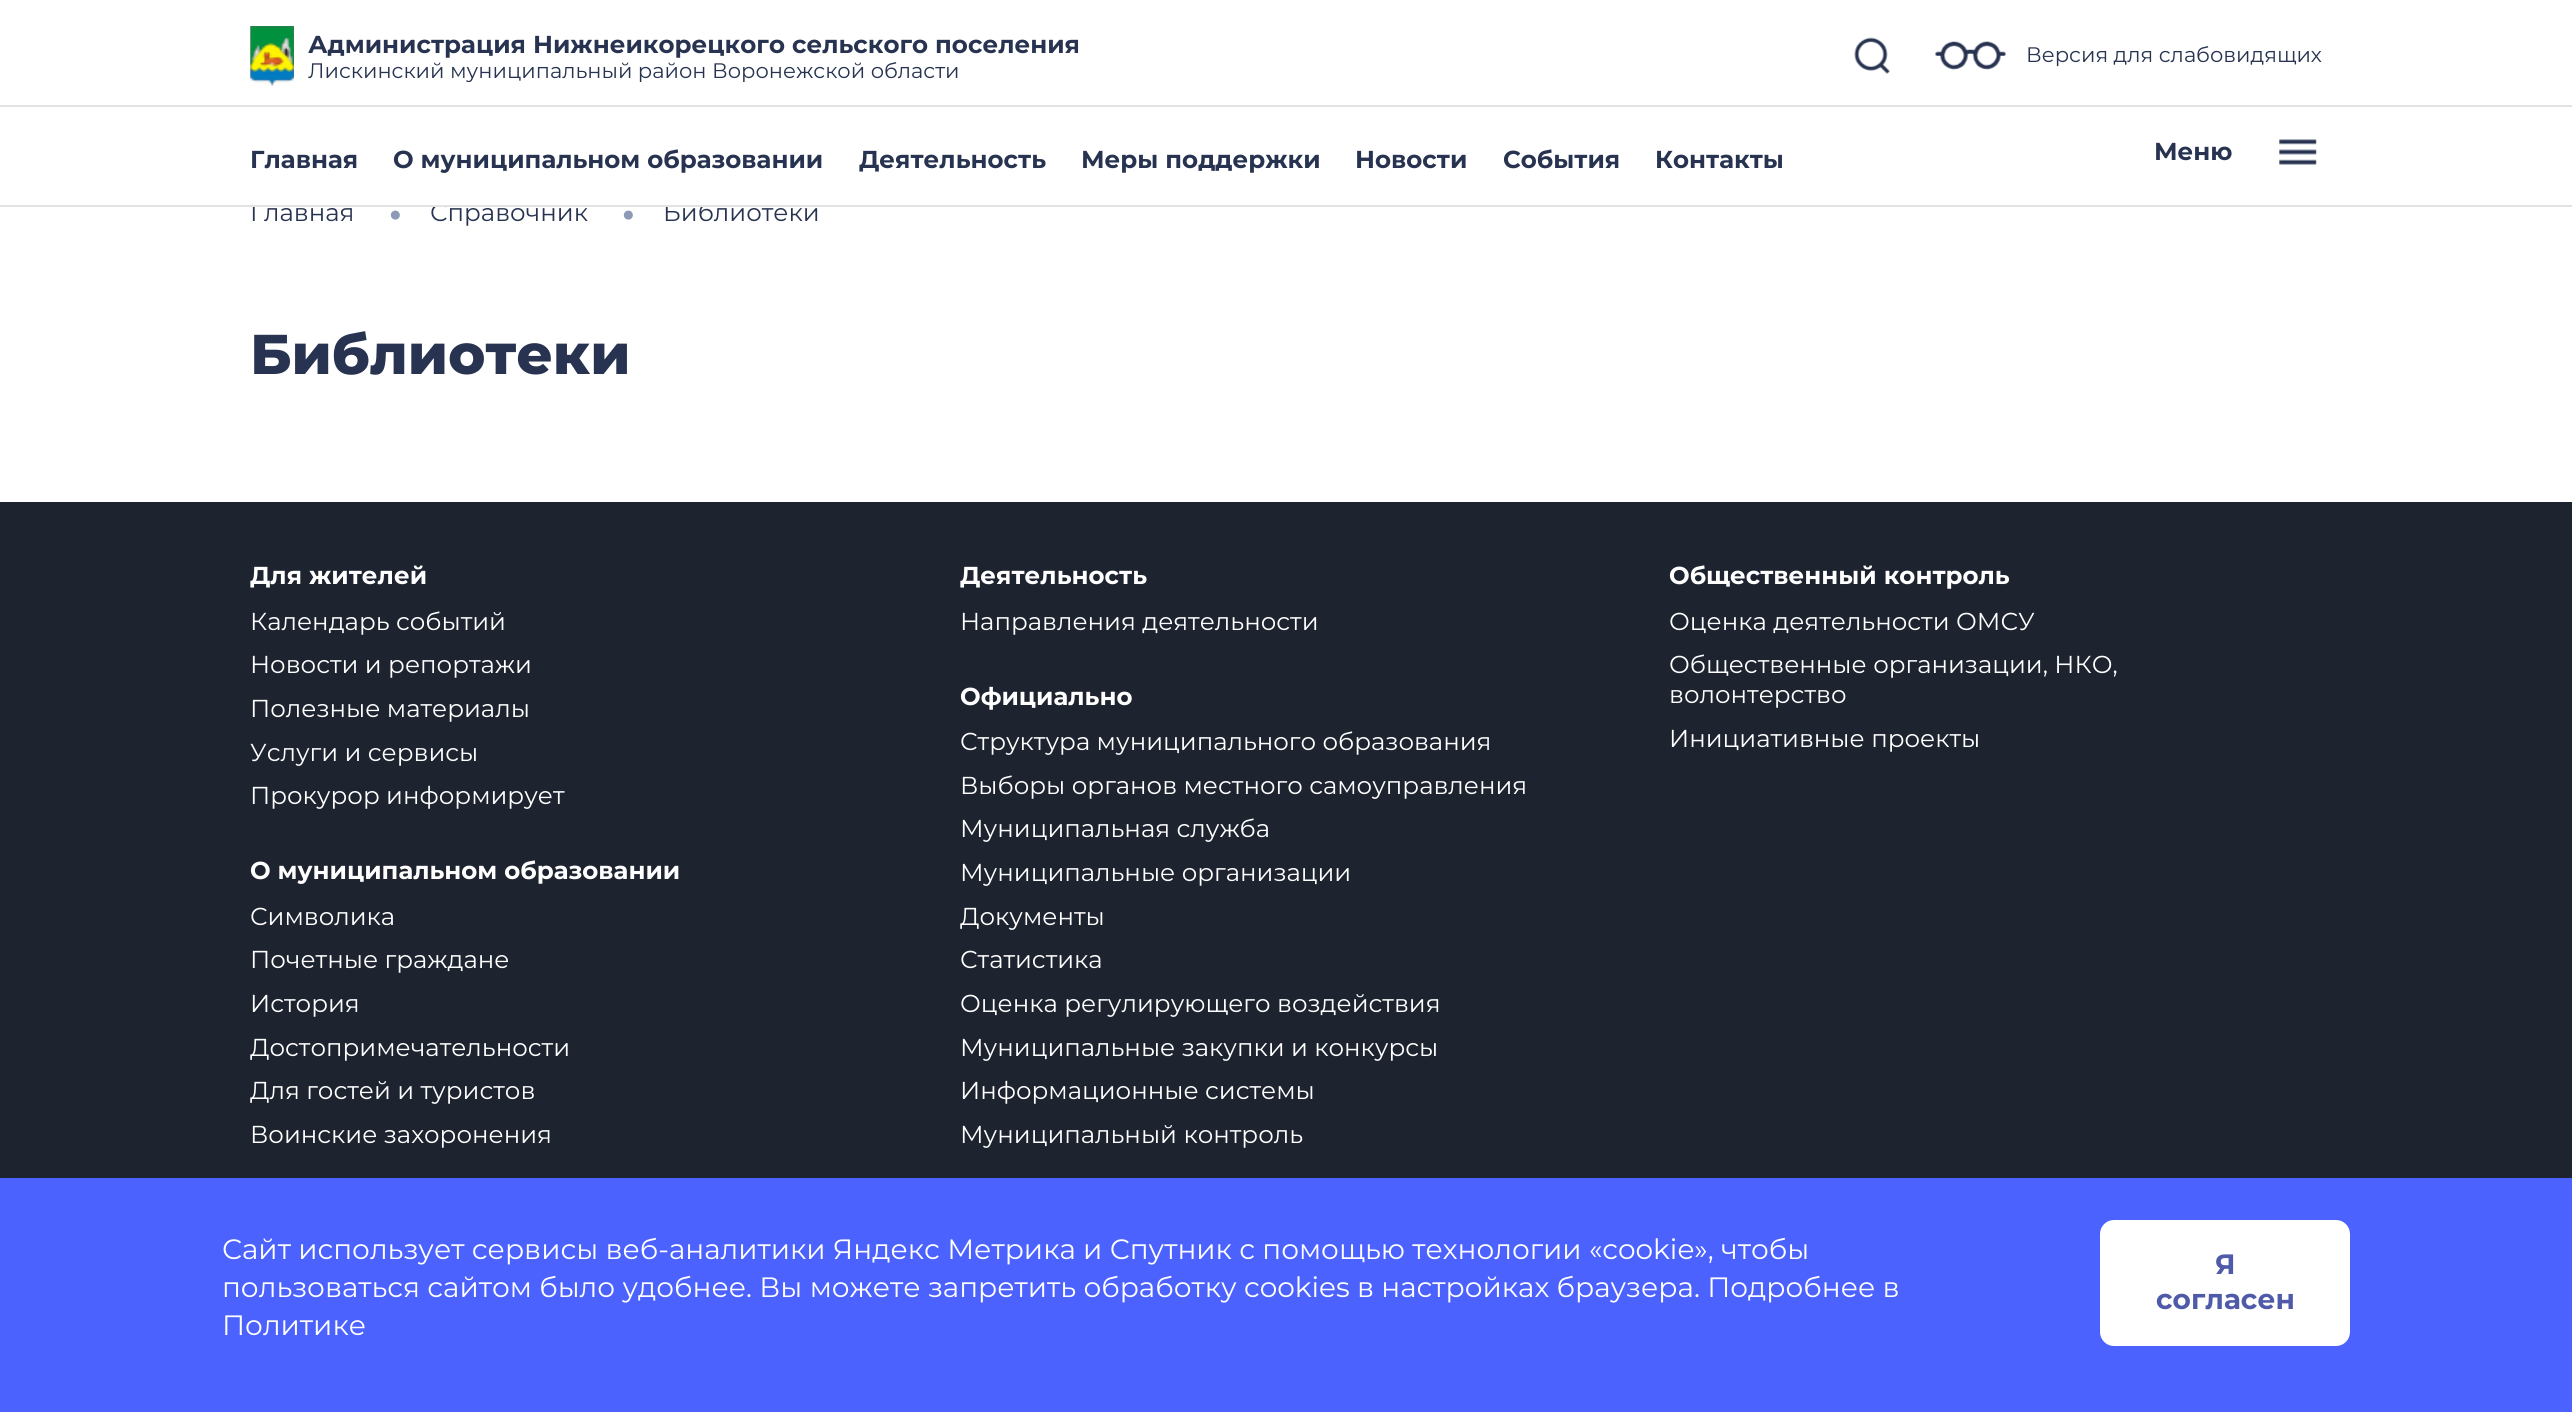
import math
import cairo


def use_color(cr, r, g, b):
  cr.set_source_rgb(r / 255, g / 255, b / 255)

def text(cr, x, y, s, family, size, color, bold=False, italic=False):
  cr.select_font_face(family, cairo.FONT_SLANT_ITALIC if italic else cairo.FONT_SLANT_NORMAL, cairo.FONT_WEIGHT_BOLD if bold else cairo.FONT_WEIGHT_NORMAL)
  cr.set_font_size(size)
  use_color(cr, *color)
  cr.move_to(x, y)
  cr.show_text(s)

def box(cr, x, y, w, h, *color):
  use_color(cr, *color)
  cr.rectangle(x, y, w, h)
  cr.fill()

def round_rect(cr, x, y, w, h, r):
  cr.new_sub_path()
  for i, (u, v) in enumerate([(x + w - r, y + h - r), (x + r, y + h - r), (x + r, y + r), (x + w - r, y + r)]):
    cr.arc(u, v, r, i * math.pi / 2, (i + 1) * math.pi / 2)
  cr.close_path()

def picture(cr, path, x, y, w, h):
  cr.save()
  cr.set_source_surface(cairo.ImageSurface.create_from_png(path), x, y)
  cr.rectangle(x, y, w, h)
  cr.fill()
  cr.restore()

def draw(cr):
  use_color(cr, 255, 255, 255)
  cr.paint()
  box(cr, 0, 105, 2572, 2, 227, 227, 227)
  picture(cr, "img_01.png", 250, 26, 44, 60)
  picture(cr, "img_02.png", 1854, 37, 36, 37)
  picture(cr, "img_03.png", 1935, 41, 71, 29)
  picture(cr, "img_04.png", 2279, 139, 38, 26)
  box(cr, 0, 502, 2572, 676, 29, 35, 47)
  box(cr, 0, 1178, 2572, 234, 75, 98, 255)
  use_color(cr, 255, 255, 255)
  round_rect(cr, 2100, 1220, 250, 126, 14)
  cr.fill()
  text(cr, 308, 53, "Администрация Нижнеикорецкого сельского поселения", "Montserrat", 24.5, (39, 51, 80), bold=True)
  cr.save()
  cr.rectangle(308, 61, 1502, 21)
  cr.clip()
  text(cr, 308, 78, "Лискинский муниципальный район Воронежской области", "Montserrat", 21, (39, 51, 80))
  cr.restore()
  text(cr, 2026, 62, "Версия для слабовидящих", "Montserrat", 21, (39, 51, 80))
  text(cr, 250, 168, "Главная", "Montserrat", 24.5, (39, 51, 80), bold=True)
  text(cr, 393, 168, "О муниципальном образовании", "Montserrat", 24.5, (39, 51, 80), bold=True)
  text(cr, 859, 168, "Деятельность", "Montserrat", 24.5, (39, 51, 80), bold=True)
  text(cr, 1081, 168, "Меры поддержки", "Montserrat", 24.5, (39, 51, 80), bold=True)
  text(cr, 1355, 168, "Новости", "Montserrat", 24.5, (39, 51, 80), bold=True)
  text(cr, 1503, 168, "События", "Montserrat", 24.5, (39, 51, 80), bold=True)
  text(cr, 1655, 168, "Контакты", "Montserrat", 24.5, (39, 51, 80), bold=True)
  text(cr, 2154, 160, "Меню", "Montserrat", 24.5, (39, 51, 80), bold=True)
  text(cr, 250, 221, "Главная", "Montserrat", 24.5, (39, 51, 80))
  text(cr, 389, 221, "●", "Liberation Serif", 21, (140, 154, 184))
  text(cr, 430, 221, "Справочник", "Montserrat", 24.5, (39, 51, 80))
  text(cr, 622, 221, "●", "Liberation Serif", 21, (140, 154, 184))
  text(cr, 663, 221, "Библиотеки", "Montserrat", 24.5, (39, 51, 80))
  box(cr, 0, 205, 2572, 2, 227, 227, 227)
  box(cr, 253, 202, 459, 3, 255, 255, 255)
  text(cr, 250, 374, "Библиотеки", "Montserrat ExtraBold", 56, (39, 51, 80))
  text(cr, 250, 584, "Для жителей", "Montserrat", 24.5, (255, 255, 255), bold=True)
  text(cr, 250, 630, "Календарь событий", "Montserrat", 24.5, (255, 255, 255))
  text(cr, 250, 673, "Новости и репортажи", "Montserrat", 24.5, (255, 255, 255))
  text(cr, 250, 717, "Полезные материалы", "Montserrat", 24.5, (255, 255, 255))
  text(cr, 250, 761, "Услуги и сервисы", "Montserrat", 24.5, (255, 255, 255))
  text(cr, 250, 804, "Прокурор информирует", "Montserrat", 24.5, (255, 255, 255))
  text(cr, 250, 879, "О муниципальном образовании", "Montserrat", 24.5, (255, 255, 255), bold=True)
  text(cr, 250, 925, "Символика", "Montserrat", 24.5, (255, 255, 255))
  text(cr, 250, 968, "Почетные граждане", "Montserrat", 24.5, (255, 255, 255))
  text(cr, 250, 1012, "История", "Montserrat", 24.5, (255, 255, 255))
  text(cr, 250, 1056, "Достопримечательности", "Montserrat", 24.5, (255, 255, 255))
  text(cr, 250, 1099, "Для гостей и туристов", "Montserrat", 24.5, (255, 255, 255))
  text(cr, 250, 1143, "Воинские захоронения", "Montserrat", 24.5, (255, 255, 255))
  text(cr, 960, 584, "Деятельность", "Montserrat", 24.5, (255, 255, 255), bold=True)
  text(cr, 960, 630, "Направления деятельности", "Montserrat", 24.5, (255, 255, 255))
  text(cr, 960, 705, "Официально", "Montserrat", 24.5, (255, 255, 255), bold=True)
  text(cr, 960, 750, "Структура муниципального образования", "Montserrat", 24.5, (255, 255, 255))
  text(cr, 960, 794, "Выборы органов местного самоуправления", "Montserrat", 24.5, (255, 255, 255))
  text(cr, 960, 837, "Муниципальная служба", "Montserrat", 24.5, (255, 255, 255))
  text(cr, 960, 881, "Муниципальные организации", "Montserrat", 24.5, (255, 255, 255))
  text(cr, 960, 925, "Документы", "Montserrat", 24.5, (255, 255, 255))
  text(cr, 960, 968, "Статистика", "Montserrat", 24.5, (255, 255, 255))
  text(cr, 960, 1012, "Оценка регулирующего воздействия", "Montserrat", 24.5, (255, 255, 255))
  text(cr, 960, 1056, "Муниципальные закупки и конкурсы", "Montserrat", 24.5, (255, 255, 255))
  text(cr, 960, 1099, "Информационные системы", "Montserrat", 24.5, (255, 255, 255))
  text(cr, 960, 1143, "Муниципальный контроль", "Montserrat", 24.5, (255, 255, 255))
  text(cr, 1669, 584, "Общественный контроль", "Montserrat", 24.5, (255, 255, 255), bold=True)
  text(cr, 1669, 630, "Оценка деятельности ОМСУ", "Montserrat", 24.5, (255, 255, 255))
  text(cr, 1669, 673, "Общественные организации, НКО,", "Montserrat", 24.5, (255, 255, 255))
  text(cr, 1669, 703, "волонтерство", "Montserrat", 24.5, (255, 255, 255))
  text(cr, 1669, 747, "Инициативные проекты", "Montserrat", 24.5, (255, 255, 255))
  text(cr, 222, 1259, "Сайт использует сервисы веб-аналитики Яндекс Метрика и Спутник с помощью технологии «cookie», чтобы", "Montserrat", 28, (255, 255, 255))
  text(cr, 222, 1297, "пользоваться сайтом было удобнее. Вы можете запретить обработку cookies в настройках браузера. Подробнее в", "Montserrat", 28, (255, 255, 255))
  text(cr, 222, 1335, "Политике", "Montserrat", 28, (255, 255, 255))
  text(cr, 2215, 1274, "Я", "Montserrat", 28, (79, 90, 168), bold=True)
  text(cr, 2156, 1309, "согласен", "Montserrat", 28, (79, 90, 168), bold=True)


surface = cairo.ImageSurface(cairo.FORMAT_RGB24, 2572, 1412)
cr = cairo.Context(surface)
options = cairo.FontOptions()
options.set_hint_metrics(cairo.HINT_METRICS_OFF)
options.set_hint_style(cairo.HINT_STYLE_NONE)
cr.set_font_options(options)
cr.set_miter_limit(4)
draw(cr)
surface.write_to_png("out.png")
